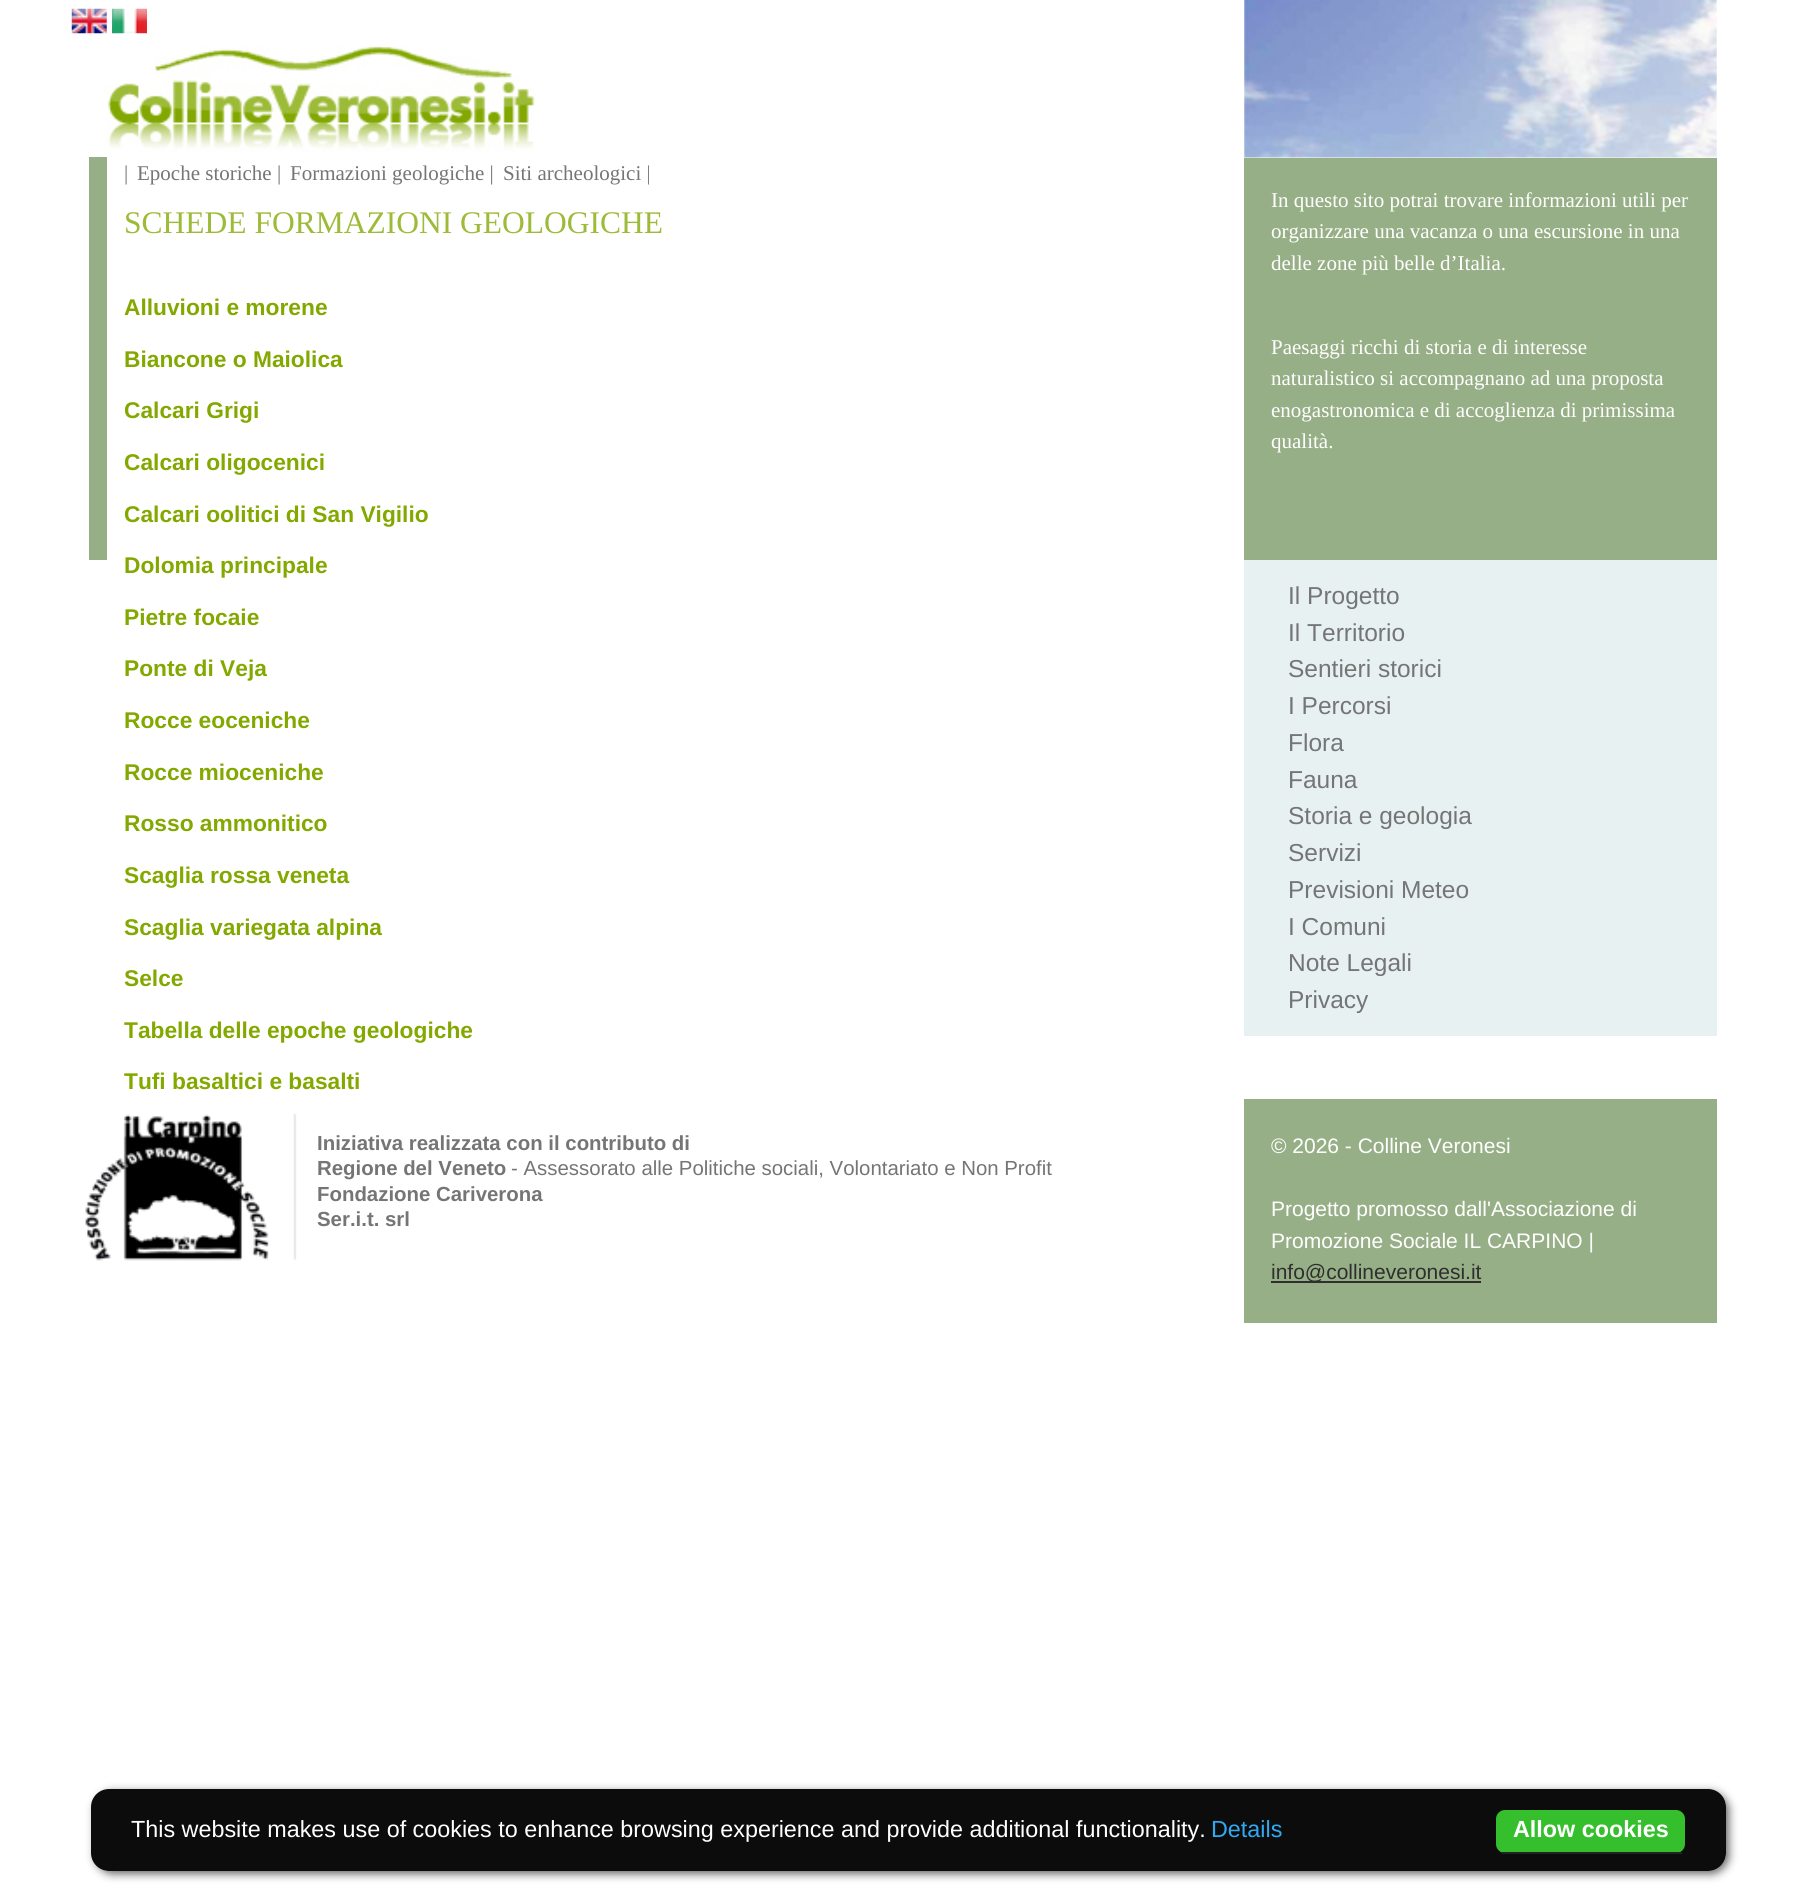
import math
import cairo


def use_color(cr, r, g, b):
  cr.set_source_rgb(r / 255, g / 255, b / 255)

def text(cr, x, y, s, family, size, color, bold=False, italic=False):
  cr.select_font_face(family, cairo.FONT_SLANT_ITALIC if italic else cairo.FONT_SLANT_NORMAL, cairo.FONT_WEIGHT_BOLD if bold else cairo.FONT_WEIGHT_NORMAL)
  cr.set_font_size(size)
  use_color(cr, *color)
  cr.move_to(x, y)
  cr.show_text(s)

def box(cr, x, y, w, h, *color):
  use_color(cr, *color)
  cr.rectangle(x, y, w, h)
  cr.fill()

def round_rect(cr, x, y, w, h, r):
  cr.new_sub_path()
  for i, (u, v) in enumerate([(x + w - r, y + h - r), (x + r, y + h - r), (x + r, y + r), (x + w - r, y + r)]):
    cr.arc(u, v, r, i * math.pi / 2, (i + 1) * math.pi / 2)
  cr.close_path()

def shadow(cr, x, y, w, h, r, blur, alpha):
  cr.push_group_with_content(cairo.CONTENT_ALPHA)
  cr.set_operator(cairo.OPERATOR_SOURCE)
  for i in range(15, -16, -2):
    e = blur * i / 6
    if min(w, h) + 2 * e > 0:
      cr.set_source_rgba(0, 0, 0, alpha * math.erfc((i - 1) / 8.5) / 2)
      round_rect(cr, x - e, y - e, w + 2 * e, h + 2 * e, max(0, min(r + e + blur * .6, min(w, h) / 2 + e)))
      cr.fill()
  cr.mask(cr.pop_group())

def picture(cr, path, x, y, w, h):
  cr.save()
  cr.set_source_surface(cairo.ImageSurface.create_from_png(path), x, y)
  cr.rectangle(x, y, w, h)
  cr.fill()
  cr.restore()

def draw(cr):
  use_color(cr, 255, 255, 255)
  cr.paint()
  picture(cr, "img_01.png", 71, 8, 36, 26)
  picture(cr, "img_02.png", 112, 8, 35, 26)
  picture(cr, "img_03.png", 104, 46, 431, 106)
  picture(cr, "img_04.png", 1244, 0, 473, 158)
  box(cr, 89, 157, 18, 403, 150, 175, 135)
  box(cr, 1244, 158, 473, 402, 151, 175, 134)
  box(cr, 1244, 560, 473, 476, 231, 241, 242)
  picture(cr, "img_05.png", 85, 1113, 212, 148)
  box(cr, 1244, 1099, 473, 224, 151, 175, 134)
  box(cr, 1271, 1281, 210, 2, 47, 47, 47)
  cr.save()
  cr.set_fill_rule(cairo.FILL_RULE_EVEN_ODD)
  cr.new_path()
  cr.move_to(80, 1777)
  cr.line_to(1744, 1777)
  cr.line_to(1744, 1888)
  cr.line_to(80, 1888)
  cr.close_path()
  cr.move_to(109, 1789)
  cr.line_to(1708, 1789)
  cr.curve_to(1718, 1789, 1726, 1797, 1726, 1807)
  cr.line_to(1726, 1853)
  cr.curve_to(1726, 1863, 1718, 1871, 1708, 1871)
  cr.line_to(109, 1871)
  cr.curve_to(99, 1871, 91, 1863, 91, 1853)
  cr.line_to(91, 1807)
  cr.curve_to(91, 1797, 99, 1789, 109, 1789)
  cr.close_path()
  cr.clip()
  use_color(cr, 0, 0, 0)
  shadow(cr, 95, 1792, 1634, 82, 18, 4.5, 0.6)
  cr.restore()
  cr.set_source_rgba(0, 0, 0, 0.95)
  round_rect(cr, 91, 1789, 1635, 82, 18)
  cr.fill()
  use_color(cr, 54, 191, 45)
  round_rect(cr, 1496, 1810, 189, 43, 9)
  cr.fill()
  box(cr, 1502, 1852, 180, 2, 34, 34, 34)
  text(cr, 124, 180, "|", "Liberation Serif", 21, (117, 117, 117))
  text(cr, 137, 180, "Epoche storiche |", "Liberation Serif", 21, (117, 117, 117))
  text(cr, 290, 180, "Formazioni geologiche |", "Liberation Serif", 21, (117, 117, 117))
  text(cr, 503, 180, "Siti archeologici |", "Liberation Serif", 21, (117, 117, 117))
  text(cr, 124, 233, "SCHEDE FORMAZIONI GEOLOGICHE", "Liberation Serif", 31.5, (157, 187, 56))
  text(cr, 124, 315, "Alluvioni e morene", "Liberation Sans", 22.75, (131, 168, 0), bold=True)
  text(cr, 124, 367, "Biancone o Maiolica", "Liberation Sans", 22.75, (131, 168, 0), bold=True)
  text(cr, 124, 418, "Calcari Grigi", "Liberation Sans", 22.75, (131, 168, 0), bold=True)
  text(cr, 124, 470, "Calcari oligocenici", "Liberation Sans", 22.75, (131, 168, 0), bold=True)
  text(cr, 124, 522, "Calcari oolitici di San Vigilio", "Liberation Sans", 22.75, (131, 168, 0), bold=True)
  text(cr, 124, 573, "Dolomia principale", "Liberation Sans", 22.75, (131, 168, 0), bold=True)
  text(cr, 124, 625, "Pietre focaie", "Liberation Sans", 22.75, (131, 168, 0), bold=True)
  text(cr, 124, 676, "Ponte di Veja", "Liberation Sans", 22.75, (131, 168, 0), bold=True)
  text(cr, 124, 728, "Rocce eoceniche", "Liberation Sans", 22.75, (131, 168, 0), bold=True)
  text(cr, 124, 780, "Rocce mioceniche", "Liberation Sans", 22.75, (131, 168, 0), bold=True)
  text(cr, 124, 831, "Rosso ammonitico", "Liberation Sans", 22.75, (131, 168, 0), bold=True)
  text(cr, 124, 883, "Scaglia rossa veneta", "Liberation Sans", 22.75, (131, 168, 0), bold=True)
  text(cr, 124, 935, "Scaglia variegata alpina", "Liberation Sans", 22.75, (131, 168, 0), bold=True)
  text(cr, 124, 986, "Selce", "Liberation Sans", 22.75, (131, 168, 0), bold=True)
  text(cr, 124, 1038, "Tabella delle epoche geologiche", "Liberation Sans", 22.75, (131, 168, 0), bold=True)
  text(cr, 124, 1089, "Tufi basaltici e basalti", "Liberation Sans", 22.75, (131, 168, 0), bold=True)
  text(cr, 1271, 207, "In questo sito potrai trovare informazioni utili per", "Liberation Serif", 21, (255, 255, 255))
  text(cr, 1271, 238, "organizzare una vacanza o una escursione in una", "Liberation Serif", 21, (255, 255, 255))
  text(cr, 1271, 270, "delle zone più belle d’Italia.", "Liberation Serif", 21, (255, 255, 255))
  text(cr, 1271, 354, "Paesaggi ricchi di storia e di interesse", "Liberation Serif", 21, (255, 255, 255))
  text(cr, 1271, 385, "naturalistico si accompagnano ad una proposta", "Liberation Serif", 21, (255, 255, 255))
  text(cr, 1271, 417, "enogastronomica e di accoglienza di primissima", "Liberation Serif", 21, (255, 255, 255))
  text(cr, 1271, 448, "qualità.", "Liberation Serif", 21, (255, 255, 255))
  text(cr, 1288, 604, "Il Progetto", "Liberation Sans", 24.5, (117, 117, 117))
  text(cr, 1288, 641, "Il Territorio", "Liberation Sans", 24.5, (117, 117, 117))
  text(cr, 1288, 677, "Sentieri storici", "Liberation Sans", 24.5, (117, 117, 117))
  text(cr, 1288, 714, "I Percorsi", "Liberation Sans", 24.5, (117, 117, 117))
  text(cr, 1288, 751, "Flora", "Liberation Sans", 24.5, (117, 117, 117))
  text(cr, 1288, 788, "Fauna", "Liberation Sans", 24.5, (117, 117, 117))
  text(cr, 1288, 824, "Storia e geologia", "Liberation Sans", 24.5, (117, 117, 117))
  text(cr, 1288, 861, "Servizi", "Liberation Sans", 24.5, (117, 117, 117))
  text(cr, 1288, 898, "Previsioni Meteo", "Liberation Sans", 24.5, (117, 117, 117))
  text(cr, 1288, 935, "I Comuni", "Liberation Sans", 24.5, (117, 117, 117))
  text(cr, 1288, 971, "Note Legali", "Liberation Sans", 24.5, (117, 117, 117))
  text(cr, 1288, 1008, "Privacy", "Liberation Sans", 24.5, (117, 117, 117))
  text(cr, 317, 1150, "Iniziativa realizzata con il contributo di", "Liberation Sans", 20.4, (117, 117, 117), bold=True)
  text(cr, 317, 1175, "Regione del Veneto", "Liberation Sans", 20.4, (117, 117, 117), bold=True)
  text(cr, 511, 1175, "- Assessorato alle Politiche sociali, Volontariato e Non Profit", "Liberation Sans", 20.4, (117, 117, 117))
  text(cr, 317, 1201, "Fondazione Cariverona", "Liberation Sans", 20.4, (117, 117, 117), bold=True)
  text(cr, 317, 1226, "Ser.i.t. srl", "Liberation Sans", 20.4, (117, 117, 117), bold=True)
  text(cr, 1271, 1153, "© 2026 - Colline Veronesi", "Liberation Sans", 21, (255, 255, 255))
  text(cr, 1271, 1216, "Progetto promosso dall'Associazione di", "Liberation Sans", 21, (255, 255, 255))
  text(cr, 1271, 1248, "Promozione Sociale IL CARPINO |", "Liberation Sans", 21, (255, 255, 255))
  text(cr, 1271, 1279, "info@collineveronesi.it", "Liberation Sans", 21, (47, 47, 47))
  text(cr, 131, 1837, "This website makes use of cookies to enhance browsing experience and provide additional functionality.", "Liberation Sans", 23.35, (255, 255, 255))
  text(cr, 1211, 1837, "Details", "Liberation Sans", 23.35, (49, 168, 240))
  text(cr, 1513, 1837, "Allow cookies", "Liberation Sans", 23.35, (255, 255, 255), bold=True)


surface = cairo.ImageSurface(cairo.FORMAT_RGB24, 1806, 1888)
cr = cairo.Context(surface)
options = cairo.FontOptions()
options.set_hint_metrics(cairo.HINT_METRICS_OFF)
options.set_hint_style(cairo.HINT_STYLE_NONE)
cr.set_font_options(options)
cr.set_miter_limit(4)
draw(cr)
surface.write_to_png("out.png")
